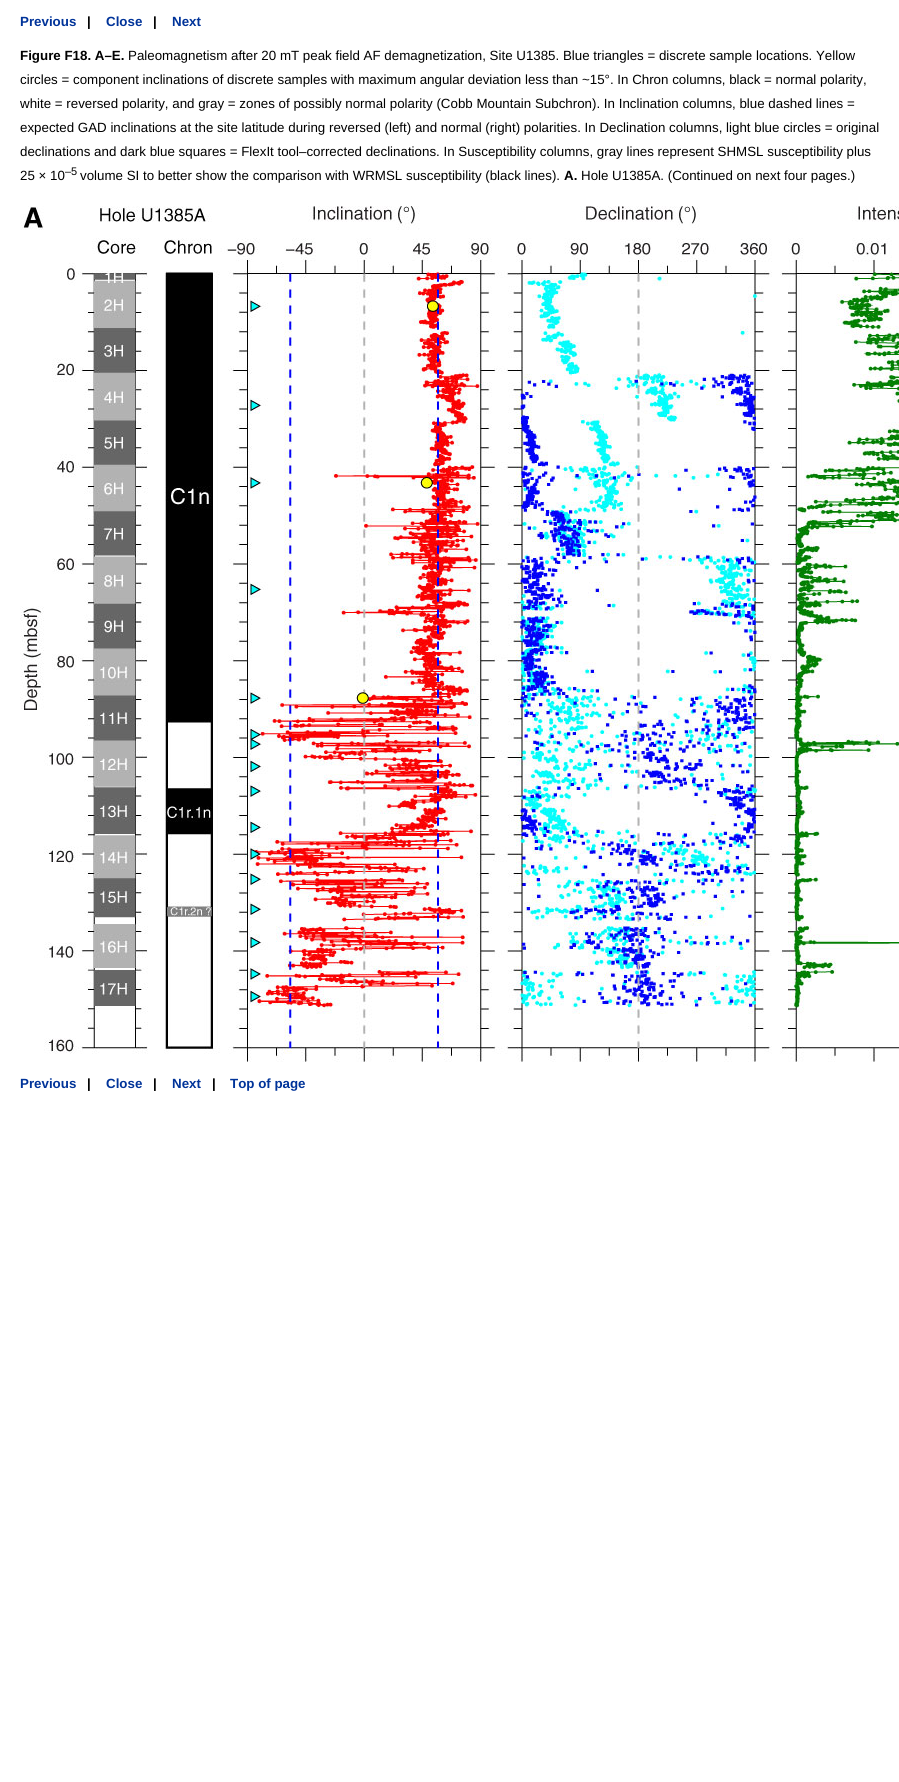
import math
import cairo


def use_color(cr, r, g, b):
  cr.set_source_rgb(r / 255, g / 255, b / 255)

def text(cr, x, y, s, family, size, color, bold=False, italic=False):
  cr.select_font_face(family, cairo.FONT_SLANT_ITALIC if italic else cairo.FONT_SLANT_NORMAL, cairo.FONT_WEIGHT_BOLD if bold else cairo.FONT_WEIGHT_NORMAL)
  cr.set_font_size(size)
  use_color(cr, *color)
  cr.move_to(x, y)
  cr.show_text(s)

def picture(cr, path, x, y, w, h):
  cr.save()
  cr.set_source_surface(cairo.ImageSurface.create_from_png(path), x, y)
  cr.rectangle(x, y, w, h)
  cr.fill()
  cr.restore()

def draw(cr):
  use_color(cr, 255, 255, 255)
  cr.paint()
  picture(cr, "img_01.png", 20, 206, 879, 856)
  text(cr, 20, 26, "Previous", "Liberation Sans", 13.33, (0, 51, 153), bold=True)
  text(cr, 87, 26, "|", "Liberation Sans", 13.33, (0, 0, 0), bold=True)
  text(cr, 106, 26, "Close", "Liberation Sans", 13.33, (0, 51, 153), bold=True)
  text(cr, 153, 26, "|", "Liberation Sans", 13.33, (0, 0, 0), bold=True)
  text(cr, 172, 26, "Next", "Liberation Sans", 13.33, (0, 51, 153), bold=True)
  text(cr, 20, 60, "Figure F18. A–E.", "Liberation Sans", 13.33, (0, 0, 0), bold=True)
  text(cr, 128, 60, "Paleomagnetism after 20 mT peak field AF demagnetization, Site U1385. Blue triangles = discrete sample locations. Yellow", "Liberation Sans", 13.33, (0, 0, 0))
  text(cr, 20, 84, "circles = component inclinations of discrete samples with maximum angular deviation less than ~15°. In Chron columns, black = normal polarity,", "Liberation Sans", 13.33, (0, 0, 0))
  text(cr, 20, 108, "white = reversed polarity, and gray = zones of possibly normal polarity (Cobb Mountain Subchron). In Inclination columns, blue dashed lines =", "Liberation Sans", 13.33, (0, 0, 0))
  text(cr, 20, 132, "expected GAD inclinations at the site latitude during reversed (left) and normal (right) polarities. In Declination columns, light blue circles = original", "Liberation Sans", 13.33, (0, 0, 0))
  text(cr, 20, 156, "declinations and dark blue squares = FlexIt tool–corrected declinations. In Susceptibility columns, gray lines represent SHMSL susceptibility plus", "Liberation Sans", 13.33, (0, 0, 0))
  text(cr, 20, 180, "25 × 10", "Liberation Sans", 13.33, (0, 0, 0))
  text(cr, 65, 175, "–5", "Liberation Sans", 11, (0, 0, 0))
  text(cr, 80, 180, "volume SI to better show the comparison with WRMSL susceptibility (black lines).", "Liberation Sans", 13.33, (0, 0, 0))
  text(cr, 564, 180, "A.", "Liberation Sans", 13.33, (0, 0, 0), bold=True)
  text(cr, 581, 180, "Hole U1385A. (Continued on next four pages.)", "Liberation Sans", 13.33, (0, 0, 0))
  text(cr, 20, 1088, "Previous", "Liberation Sans", 13.33, (0, 51, 153), bold=True)
  text(cr, 87, 1088, "|", "Liberation Sans", 13.33, (0, 0, 0), bold=True)
  text(cr, 106, 1088, "Close", "Liberation Sans", 13.33, (0, 51, 153), bold=True)
  text(cr, 153, 1088, "|", "Liberation Sans", 13.33, (0, 0, 0), bold=True)
  text(cr, 172, 1088, "Next", "Liberation Sans", 13.33, (0, 51, 153), bold=True)
  text(cr, 212, 1088, "|", "Liberation Sans", 13.33, (0, 0, 0), bold=True)
  text(cr, 230, 1088, "Top of page", "Liberation Sans", 13.33, (0, 51, 153), bold=True)


surface = cairo.ImageSurface(cairo.FORMAT_RGB24, 899, 1782)
cr = cairo.Context(surface)
options = cairo.FontOptions()
options.set_hint_metrics(cairo.HINT_METRICS_OFF)
options.set_hint_style(cairo.HINT_STYLE_NONE)
cr.set_font_options(options)
cr.set_miter_limit(4)
draw(cr)
surface.write_to_png("out.png")
